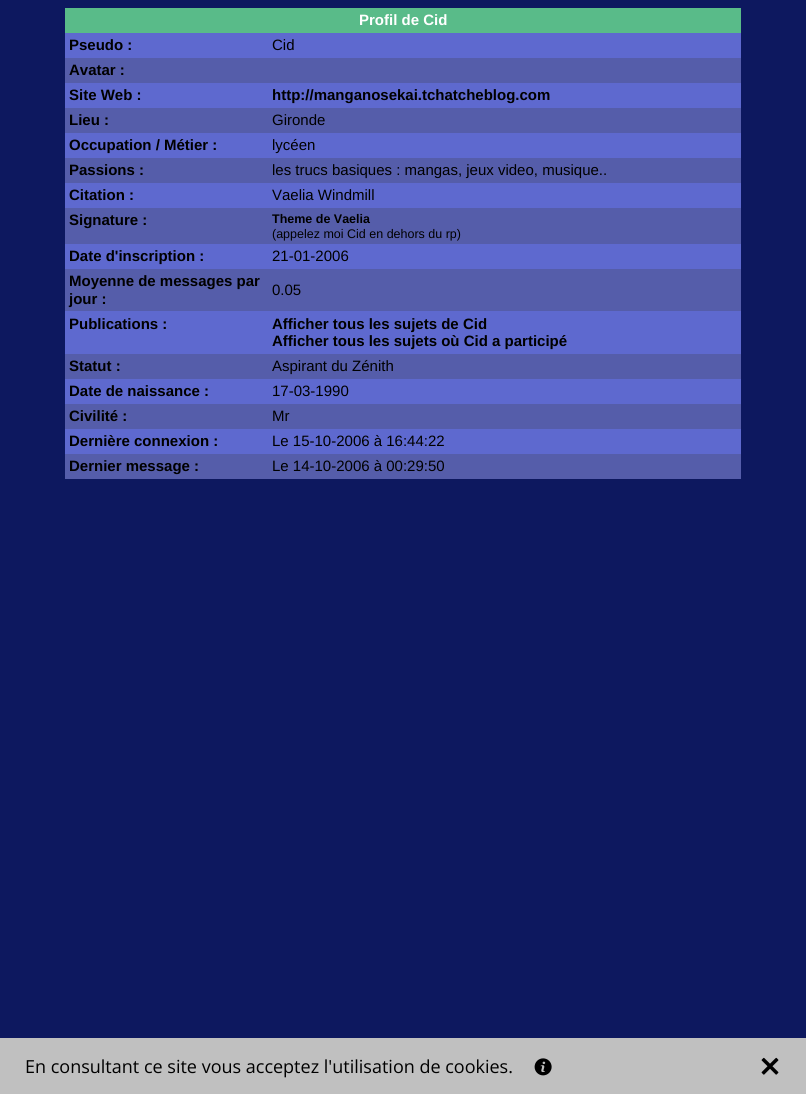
import math
import cairo


def use_color(cr, r, g, b):
  cr.set_source_rgb(r / 255, g / 255, b / 255)

def text(cr, x, y, s, family, size, color, bold=False, italic=False):
  cr.select_font_face(family, cairo.FONT_SLANT_ITALIC if italic else cairo.FONT_SLANT_NORMAL, cairo.FONT_WEIGHT_BOLD if bold else cairo.FONT_WEIGHT_NORMAL)
  cr.set_font_size(size)
  use_color(cr, *color)
  cr.move_to(x, y)
  cr.show_text(s)

def box(cr, x, y, w, h, *color):
  use_color(cr, *color)
  cr.rectangle(x, y, w, h)
  cr.fill()

def picture(cr, path, x, y, w, h):
  cr.save()
  cr.set_source_surface(cairo.ImageSurface.create_from_png(path), x, y)
  cr.rectangle(x, y, w, h)
  cr.fill()
  cr.restore()

def draw(cr):
  use_color(cr, 13, 24, 95)
  cr.paint()
  box(cr, 65, 8, 676, 25, 89, 187, 137)
  box(cr, 65, 33, 676, 25, 94, 105, 207)
  box(cr, 65, 58, 676, 25, 85, 93, 170)
  box(cr, 65, 83, 676, 25, 94, 105, 207)
  box(cr, 65, 108, 676, 25, 85, 93, 170)
  box(cr, 65, 133, 676, 25, 94, 105, 207)
  box(cr, 65, 158, 676, 25, 85, 93, 170)
  box(cr, 65, 183, 676, 25, 94, 105, 207)
  box(cr, 65, 208, 676, 36, 85, 93, 170)
  box(cr, 65, 244, 676, 25, 94, 105, 207)
  box(cr, 65, 269, 676, 42, 85, 93, 170)
  box(cr, 65, 311, 676, 43, 94, 105, 207)
  box(cr, 65, 354, 676, 25, 85, 93, 170)
  box(cr, 65, 379, 676, 25, 94, 105, 207)
  box(cr, 65, 404, 676, 25, 85, 93, 170)
  box(cr, 65, 429, 676, 25, 94, 105, 207)
  box(cr, 65, 454, 676, 25, 85, 93, 170)
  box(cr, 0, 1038, 806, 56, 192, 192, 192)
  picture(cr, "img_01.png", 534, 1058, 18, 18)
  picture(cr, "img_02.png", 761, 1057, 18, 18)
  text(cr, 359, 25, "Profil de Cid", "Liberation Sans", 15, (255, 255, 255), bold=True)
  text(cr, 69, 50, "Pseudo :", "Liberation Sans", 15, (0, 0, 0), bold=True)
  text(cr, 272, 50, "Cid", "Liberation Sans", 15, (0, 0, 0))
  text(cr, 69, 75, "Avatar :", "Liberation Sans", 15, (0, 0, 0), bold=True)
  text(cr, 69, 100, "Site Web :", "Liberation Sans", 15, (0, 0, 0), bold=True)
  text(cr, 272, 100, "http://manganosekai.tchatcheblog.com", "Liberation Sans", 15, (0, 0, 0), bold=True)
  text(cr, 69, 125, "Lieu :", "Liberation Sans", 15, (0, 0, 0), bold=True)
  text(cr, 272, 125, "Gironde", "Liberation Sans", 15, (0, 0, 0))
  text(cr, 69, 150, "Occupation / Métier :", "Liberation Sans", 15, (0, 0, 0), bold=True)
  text(cr, 272, 150, "lycéen", "Liberation Sans", 15, (0, 0, 0))
  text(cr, 69, 175, "Passions :", "Liberation Sans", 15, (0, 0, 0), bold=True)
  text(cr, 272, 175, "les trucs basiques : mangas, jeux video, musique..", "Liberation Sans", 15, (0, 0, 0))
  text(cr, 69, 200, "Citation :", "Liberation Sans", 15, (0, 0, 0), bold=True)
  text(cr, 272, 200, "Vaelia Windmill", "Liberation Sans", 15, (0, 0, 0))
  text(cr, 69, 225, "Signature :", "Liberation Sans", 15, (0, 0, 0), bold=True)
  text(cr, 272, 223, "Theme de Vaelia", "Liberation Sans", 12.5, (0, 0, 0), bold=True)
  text(cr, 272, 238, "(appelez moi Cid en dehors du rp)", "Liberation Sans", 12.5, (0, 0, 0))
  text(cr, 69, 261, "Date d'inscription :", "Liberation Sans", 15, (0, 0, 0), bold=True)
  text(cr, 272, 261, "21-01-2006", "Liberation Sans", 15, (0, 0, 0))
  text(cr, 69, 286, "Moyenne de messages par", "Liberation Sans", 15, (0, 0, 0), bold=True)
  text(cr, 69, 304, "jour :", "Liberation Sans", 15, (0, 0, 0), bold=True)
  text(cr, 272, 295, "0.05", "Liberation Sans", 15, (0, 0, 0))
  text(cr, 69, 329, "Publications :", "Liberation Sans", 15, (0, 0, 0), bold=True)
  text(cr, 272, 329, "Afficher tous les sujets de Cid", "Liberation Sans", 15, (0, 0, 0), bold=True)
  text(cr, 272, 346, "Afficher tous les sujets où Cid a participé", "Liberation Sans", 15, (0, 0, 0), bold=True)
  text(cr, 69, 371, "Statut :", "Liberation Sans", 15, (0, 0, 0), bold=True)
  text(cr, 272, 371, "Aspirant du Zénith", "Liberation Sans", 15, (0, 0, 0))
  text(cr, 69, 396, "Date de naissance :", "Liberation Sans", 15, (0, 0, 0), bold=True)
  text(cr, 272, 396, "17-03-1990", "Liberation Sans", 15, (0, 0, 0))
  text(cr, 69, 421, "Civilité :", "Liberation Sans", 15, (0, 0, 0), bold=True)
  text(cr, 272, 421, "Mr", "Liberation Sans", 15, (0, 0, 0))
  text(cr, 69, 446, "Dernière connexion :", "Liberation Sans", 15, (0, 0, 0), bold=True)
  text(cr, 272, 446, "Le 15-10-2006 à 16:44:22", "Liberation Sans", 15, (0, 0, 0))
  text(cr, 69, 471, "Dernier message :", "Liberation Sans", 15, (0, 0, 0), bold=True)
  text(cr, 272, 471, "Le 14-10-2006 à 00:29:50", "Liberation Sans", 15, (0, 0, 0))
  text(cr, 25, 1073, "En consultant ce site vous acceptez l'utilisation de cookies.", "Open Sans", 18, (0, 0, 0))


surface = cairo.ImageSurface(cairo.FORMAT_RGB24, 806, 1094)
cr = cairo.Context(surface)
options = cairo.FontOptions()
options.set_hint_metrics(cairo.HINT_METRICS_OFF)
options.set_hint_style(cairo.HINT_STYLE_NONE)
cr.set_font_options(options)
cr.set_miter_limit(4)
draw(cr)
surface.write_to_png("out.png")
